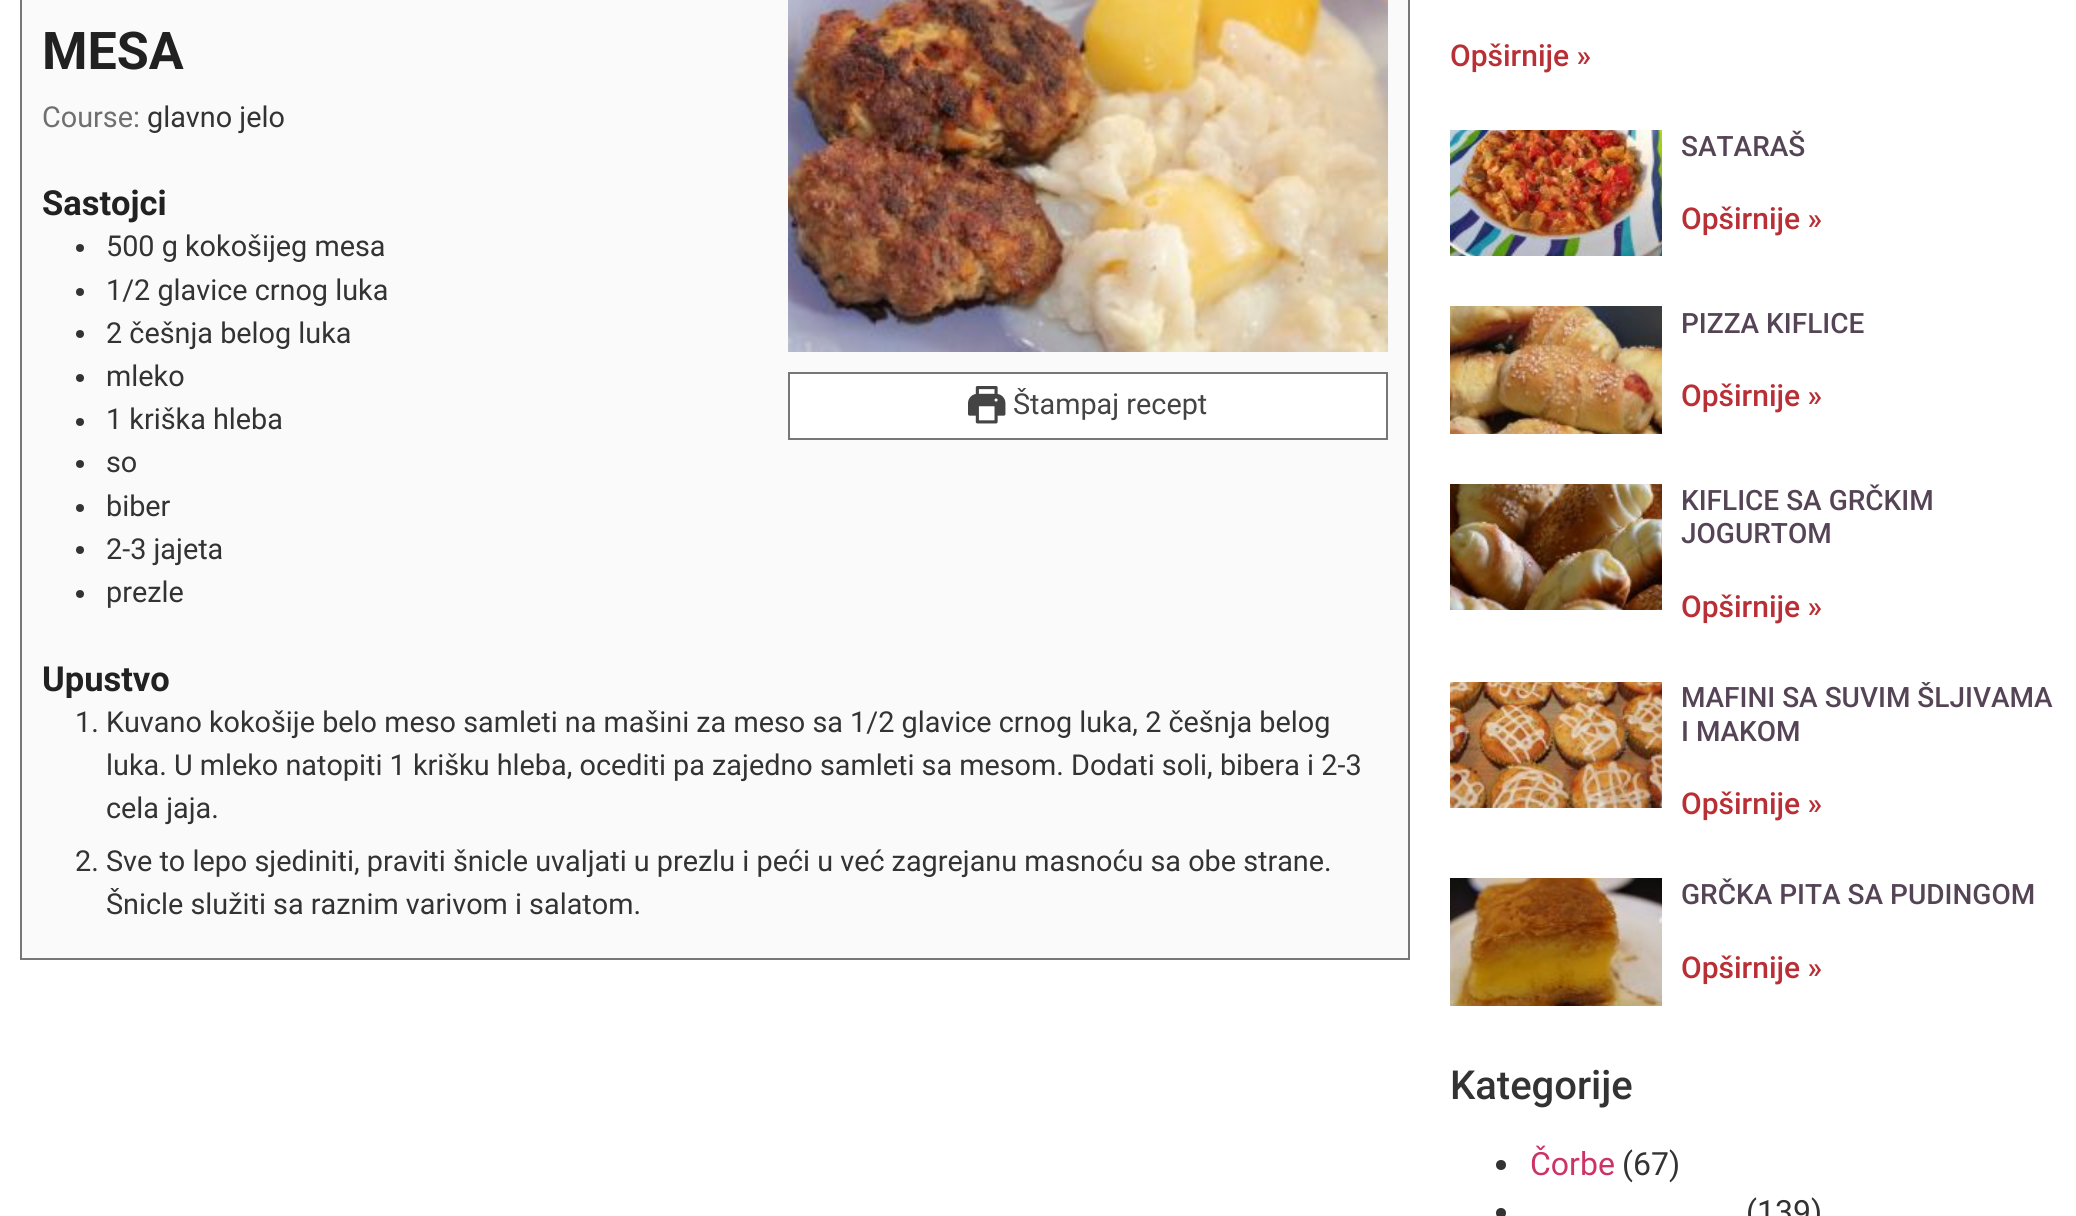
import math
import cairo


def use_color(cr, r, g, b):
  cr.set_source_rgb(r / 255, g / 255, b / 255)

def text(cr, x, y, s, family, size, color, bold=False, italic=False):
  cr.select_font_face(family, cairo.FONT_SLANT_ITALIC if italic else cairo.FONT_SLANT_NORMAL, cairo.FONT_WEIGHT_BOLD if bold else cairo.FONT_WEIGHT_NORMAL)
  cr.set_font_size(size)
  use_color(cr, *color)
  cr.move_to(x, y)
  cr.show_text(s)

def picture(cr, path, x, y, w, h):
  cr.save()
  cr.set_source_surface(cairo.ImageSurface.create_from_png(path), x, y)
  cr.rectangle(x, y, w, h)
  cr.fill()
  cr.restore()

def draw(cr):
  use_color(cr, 255, 255, 255)
  cr.paint()
  use_color(cr, 250, 250, 250)
  cr.rectangle(21, -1, 1388, 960)
  cr.fill_preserve()
  use_color(cr, 119, 119, 119)
  cr.stroke()
  use_color(cr, 51, 51, 51)
  cr.arc(80, 248, 4, 0, 2 * math.pi)
  cr.fill()
  cr.arc(80, 292, 4, 0, 2 * math.pi)
  cr.fill()
  cr.arc(80, 334, 4, 0, 2 * math.pi)
  cr.fill()
  cr.arc(80, 378, 4, 0, 2 * math.pi)
  cr.fill()
  cr.arc(80, 422, 4, 0, 2 * math.pi)
  cr.fill()
  cr.arc(80, 464, 4, 0, 2 * math.pi)
  cr.fill()
  cr.arc(80, 508, 4, 0, 2 * math.pi)
  cr.fill()
  cr.arc(80, 550, 4, 0, 2 * math.pi)
  cr.fill()
  cr.arc(80, 594, 4, 0, 2 * math.pi)
  cr.fill()
  picture(cr, "img_01.png", 788, 0, 600, 352)
  use_color(cr, 255, 255, 255)
  cr.rectangle(789, 373, 598, 66)
  cr.fill_preserve()
  use_color(cr, 119, 119, 119)
  cr.stroke()
  picture(cr, "img_02.png", 968, 386, 38, 38)
  picture(cr, "img_03.png", 1450, 130, 212, 126)
  picture(cr, "img_04.png", 1450, 306, 212, 128)
  picture(cr, "img_05.png", 1450, 484, 212, 126)
  picture(cr, "img_06.png", 1450, 682, 212, 126)
  picture(cr, "img_07.png", 1450, 878, 212, 128)
  use_color(cr, 51, 51, 51)
  cr.arc(1501, 1165, 5, 0, 2 * math.pi)
  cr.fill()
  cr.arc(1501, 1213, 5, 0, 2 * math.pi)
  cr.fill()
  text(cr, 42, 69, "MESA", "Roboto", 52, (33, 33, 33), bold=True)
  text(cr, 42, 127, "Course:", "Roboto", 28.8, (111, 111, 111))
  text(cr, 147, 127, "glavno jelo", "Roboto", 28.8, (51, 51, 51))
  text(cr, 42, 215, "Sastojci", "Roboto", 34.5, (33, 33, 33), bold=True)
  text(cr, 106, 256, "500 g kokošijeg mesa", "Roboto", 28.8, (51, 51, 51))
  text(cr, 106, 300, "1/2 glavice crnog luka", "Roboto", 28.8, (51, 51, 51))
  text(cr, 106, 343, "2 češnja belog luka", "Roboto", 28.8, (51, 51, 51))
  text(cr, 106, 386, "mleko", "Roboto", 28.8, (51, 51, 51))
  text(cr, 106, 429, "1 kriška hleba", "Roboto", 28.8, (51, 51, 51))
  text(cr, 106, 472, "so", "Roboto", 28.8, (51, 51, 51))
  text(cr, 106, 516, "biber", "Roboto", 28.8, (51, 51, 51))
  text(cr, 106, 559, "2-3 jajeta", "Roboto", 28.8, (51, 51, 51))
  text(cr, 106, 602, "prezle", "Roboto", 28.8, (51, 51, 51))
  text(cr, 1013, 414, "Štampaj recept", "Roboto", 28.8, (68, 68, 68))
  text(cr, 42, 691, "Upustvo", "Roboto", 34.5, (33, 33, 33), bold=True)
  text(cr, 75, 732, "1. Kuvano kokošije belo meso samleti na mašini za meso sa 1/2 glavice crnog luka, 2 češnja belog", "Roboto", 28.8, (51, 51, 51))
  text(cr, 106, 775, "luka. U mleko natopiti 1 krišku hleba, ocediti pa zajedno samleti sa mesom. Dodati soli, bibera i 2-3", "Roboto", 28.8, (51, 51, 51))
  text(cr, 106, 818, "cela jaja.", "Roboto", 28.8, (51, 51, 51))
  text(cr, 75, 871, "2. Sve to lepo sjediniti, praviti šnicle uvaljati u prezlu i peći u već zagrejanu masnoću sa obe strane.", "Roboto", 28.8, (51, 51, 51))
  text(cr, 106, 914, "Šnicle služiti sa raznim varivom i salatom.", "Roboto", 28.8, (51, 51, 51))
  text(cr, 1450, 66, "Opširnije »", "Roboto Medium", 30, (184, 47, 53))
  text(cr, 1681, 156, "SATARAŠ", "Roboto Medium", 28, (85, 68, 85))
  text(cr, 1681, 229, "Opširnije »", "Roboto Medium", 30, (184, 47, 53))
  text(cr, 1681, 333, "PIZZA KIFLICE", "Roboto Medium", 28, (85, 68, 85))
  text(cr, 1681, 406, "Opširnije »", "Roboto Medium", 30, (184, 47, 53))
  text(cr, 1681, 510, "KIFLICE SA GRČKIM", "Roboto Medium", 28, (85, 68, 85))
  text(cr, 1681, 543, "JOGURTOM", "Roboto Medium", 28, (85, 68, 85))
  text(cr, 1681, 617, "Opširnije »", "Roboto Medium", 30, (184, 47, 53))
  cr.save()
  cr.rectangle(1450, 682, 606, 146)
  cr.clip()
  text(cr, 1681, 707, "MAFINI SA SUVIM ŠLJIVAMA", "Roboto Medium", 28, (85, 68, 85))
  cr.restore()
  text(cr, 1681, 741, "I MAKOM", "Roboto Medium", 28, (85, 68, 85))
  text(cr, 1681, 814, "Opširnije »", "Roboto Medium", 30, (184, 47, 53))
  text(cr, 1681, 904, "GRČKA PITA SA PUDINGOM", "Roboto Medium", 28, (85, 68, 85))
  text(cr, 1681, 978, "Opširnije »", "Roboto Medium", 30, (184, 47, 53))
  text(cr, 1450, 1099, "Kategorije", "Roboto Medium", 40, (51, 51, 51))
  text(cr, 1530, 1175, "Čorbe", "Roboto", 32, (204, 51, 102))
  text(cr, 1622, 1175, "(67)", "Roboto", 32, (51, 51, 51))
  text(cr, 1746, 1223, "(139)", "Roboto", 32, (51, 51, 51))


surface = cairo.ImageSurface(cairo.FORMAT_RGB24, 2076, 1216)
cr = cairo.Context(surface)
options = cairo.FontOptions()
options.set_hint_metrics(cairo.HINT_METRICS_OFF)
options.set_hint_style(cairo.HINT_STYLE_NONE)
cr.set_font_options(options)
cr.set_miter_limit(4)
draw(cr)
surface.write_to_png("out.png")
